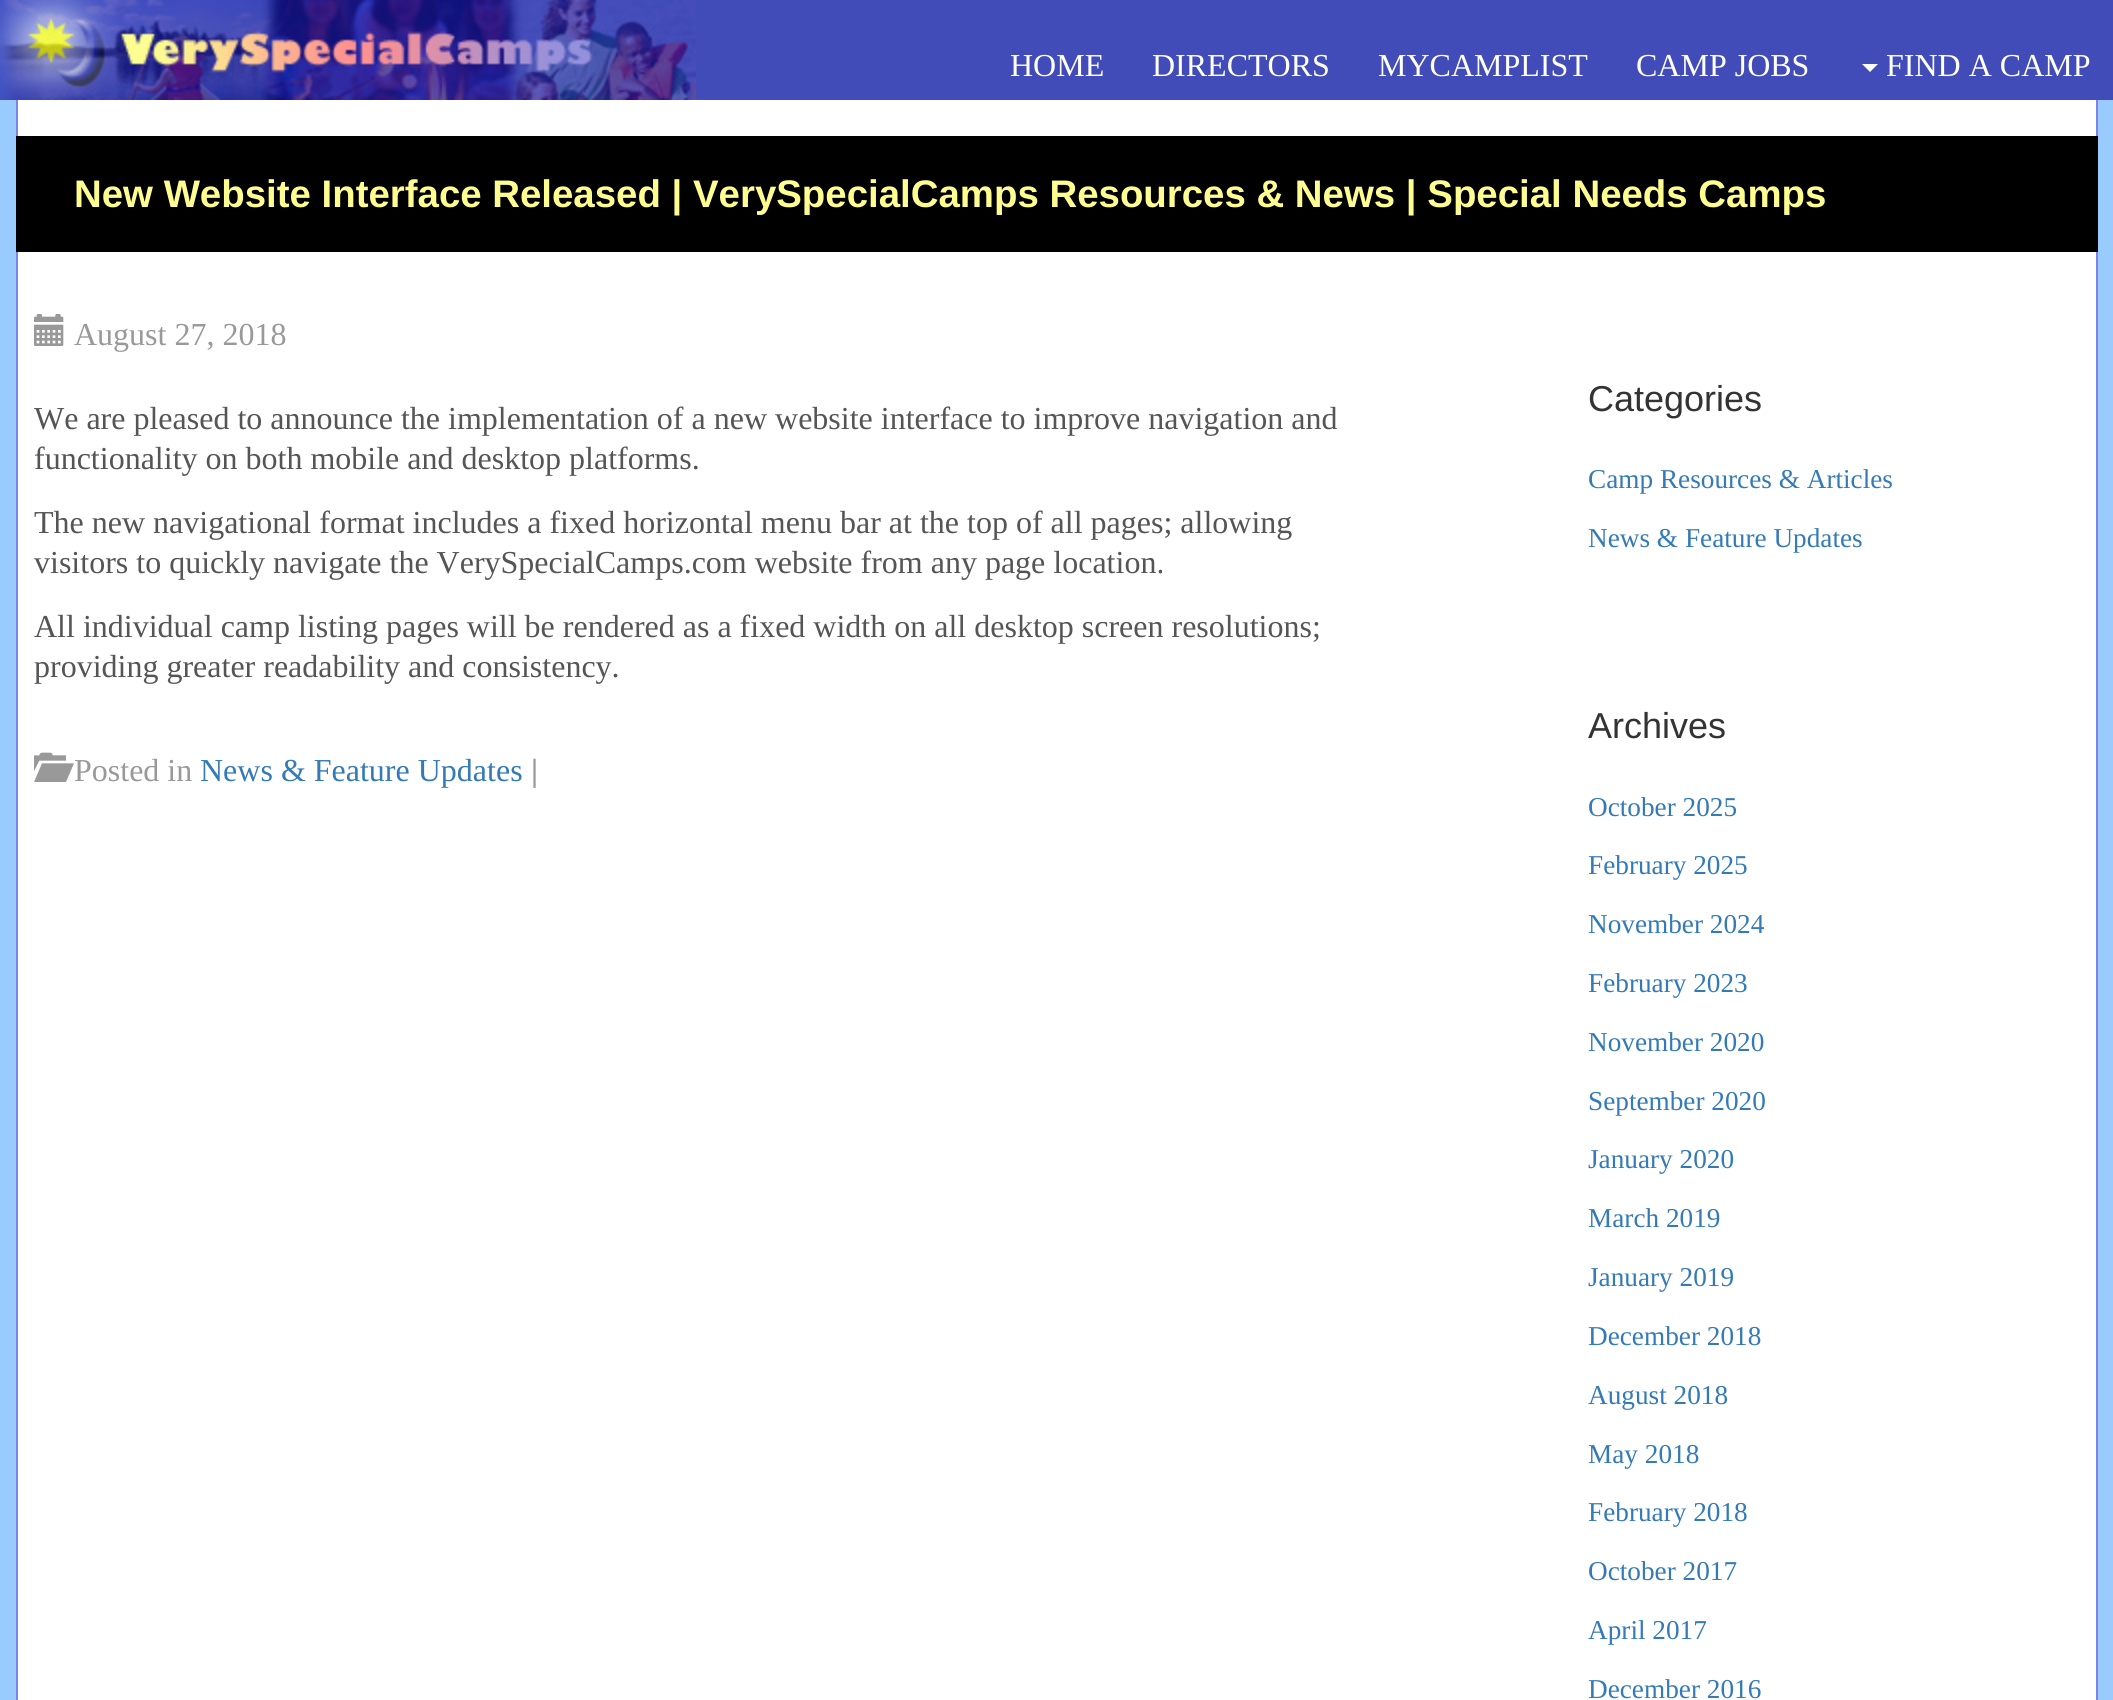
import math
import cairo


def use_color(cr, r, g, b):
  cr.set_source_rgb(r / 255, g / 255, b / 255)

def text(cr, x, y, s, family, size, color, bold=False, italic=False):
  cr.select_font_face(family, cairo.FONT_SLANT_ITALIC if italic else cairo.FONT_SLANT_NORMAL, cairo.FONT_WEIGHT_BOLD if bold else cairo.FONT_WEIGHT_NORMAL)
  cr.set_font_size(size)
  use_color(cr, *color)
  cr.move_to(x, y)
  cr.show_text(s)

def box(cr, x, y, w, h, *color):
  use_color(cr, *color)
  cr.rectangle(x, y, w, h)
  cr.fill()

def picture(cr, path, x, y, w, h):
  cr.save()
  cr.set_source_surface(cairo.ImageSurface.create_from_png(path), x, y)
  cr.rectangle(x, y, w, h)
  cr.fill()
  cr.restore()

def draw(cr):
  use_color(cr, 153, 203, 254)
  cr.paint()
  box(cr, 18, 100, 2078, 1600, 255, 255, 255)
  cr.rectangle(17, -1, 2080, 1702)
  use_color(cr, 122, 132, 236)
  cr.stroke()
  box(cr, 696, 0, 1417, 100, 66, 76, 185)
  picture(cr, "img_01.png", 0, 0, 696, 100)
  use_color(cr, 255, 255, 255)
  cr.new_path()
  cr.move_to(1862, 64)
  cr.line_to(1878, 64)
  cr.line_to(1870, 72)
  cr.close_path()
  cr.fill()
  box(cr, 16, 136, 2082, 116, 0, 0, 0)
  picture(cr, "img_02.png", 34, 314, 30, 32)
  picture(cr, "img_03.png", 34, 752, 40, 30)
  text(cr, 1010, 76, "HOME", "Liberation Serif", 32, (255, 255, 255))
  text(cr, 1152, 76, "DIRECTORS", "Liberation Serif", 32, (255, 255, 255))
  text(cr, 1378, 76, "MYCAMPLIST", "Liberation Serif", 32, (255, 255, 255))
  text(cr, 1636, 76, "CAMP JOBS", "Liberation Serif", 32, (255, 255, 255))
  text(cr, 1886, 76, "FIND A CAMP", "Liberation Serif", 32, (255, 255, 255))
  text(cr, 74, 207, "New Website Interface Released | VerySpecialCamps Resources & News | Special Needs Camps", "Liberation Sans", 38.4, (255, 253, 143), bold=True)
  text(cr, 74, 345, "August 27, 2018", "Liberation Serif", 32, (153, 153, 153))
  text(cr, 34, 429, "We are pleased to announce the implementation of a new website interface to improve navigation and", "Liberation Serif", 32, (85, 85, 85))
  text(cr, 34, 469, "functionality on both mobile and desktop platforms.", "Liberation Serif", 32, (85, 85, 85))
  text(cr, 34, 533, "The new navigational format includes a fixed horizontal menu bar at the top of all pages; allowing", "Liberation Serif", 32, (85, 85, 85))
  text(cr, 34, 573, "visitors to quickly navigate the VerySpecialCamps.com website from any page location.", "Liberation Serif", 32, (85, 85, 85))
  text(cr, 34, 637, "All individual camp listing pages will be rendered as a fixed width on all desktop screen resolutions;", "Liberation Serif", 32, (85, 85, 85))
  text(cr, 34, 677, "providing greater readability and consistency.", "Liberation Serif", 32, (85, 85, 85))
  text(cr, 74, 781, "Posted in", "Liberation Serif", 32, (153, 153, 153))
  text(cr, 200, 781, "News & Feature Updates", "Liberation Serif", 32, (51, 122, 183))
  text(cr, 531, 781, "|", "Liberation Serif", 32, (153, 153, 153), bold=True)
  text(cr, 1588, 411, "Categories", "Liberation Sans", 36, (51, 51, 51))
  text(cr, 1588, 488, "Camp Resources & Articles", "Liberation Serif", 27.25, (51, 122, 183))
  text(cr, 1588, 547, "News & Feature Updates", "Liberation Serif", 27.25, (51, 122, 183))
  text(cr, 1588, 738, "Archives", "Liberation Sans", 36, (51, 51, 51))
  text(cr, 1588, 816, "October 2025", "Liberation Serif", 27.25, (51, 122, 183))
  text(cr, 1588, 874, "February 2025", "Liberation Serif", 27.25, (51, 122, 183))
  text(cr, 1588, 933, "November 2024", "Liberation Serif", 27.25, (51, 122, 183))
  text(cr, 1588, 992, "February 2023", "Liberation Serif", 27.25, (51, 122, 183))
  text(cr, 1588, 1051, "November 2020", "Liberation Serif", 27.25, (51, 122, 183))
  text(cr, 1588, 1110, "September 2020", "Liberation Serif", 27.25, (51, 122, 183))
  text(cr, 1588, 1168, "January 2020", "Liberation Serif", 27.25, (51, 122, 183))
  text(cr, 1588, 1227, "March 2019", "Liberation Serif", 27.25, (51, 122, 183))
  text(cr, 1588, 1286, "January 2019", "Liberation Serif", 27.25, (51, 122, 183))
  text(cr, 1588, 1345, "December 2018", "Liberation Serif", 27.25, (51, 122, 183))
  text(cr, 1588, 1404, "August 2018", "Liberation Serif", 27.25, (51, 122, 183))
  text(cr, 1588, 1463, "May 2018", "Liberation Serif", 27.25, (51, 122, 183))
  text(cr, 1588, 1521, "February 2018", "Liberation Serif", 27.25, (51, 122, 183))
  text(cr, 1588, 1580, "October 2017", "Liberation Serif", 27.25, (51, 122, 183))
  text(cr, 1588, 1639, "April 2017", "Liberation Serif", 27.25, (51, 122, 183))
  text(cr, 1588, 1698, "December 2016", "Liberation Serif", 27.25, (51, 122, 183))


surface = cairo.ImageSurface(cairo.FORMAT_RGB24, 2113, 1700)
cr = cairo.Context(surface)
options = cairo.FontOptions()
options.set_hint_metrics(cairo.HINT_METRICS_OFF)
options.set_hint_style(cairo.HINT_STYLE_NONE)
cr.set_font_options(options)
cr.set_miter_limit(4)
draw(cr)
surface.write_to_png("out.png")
